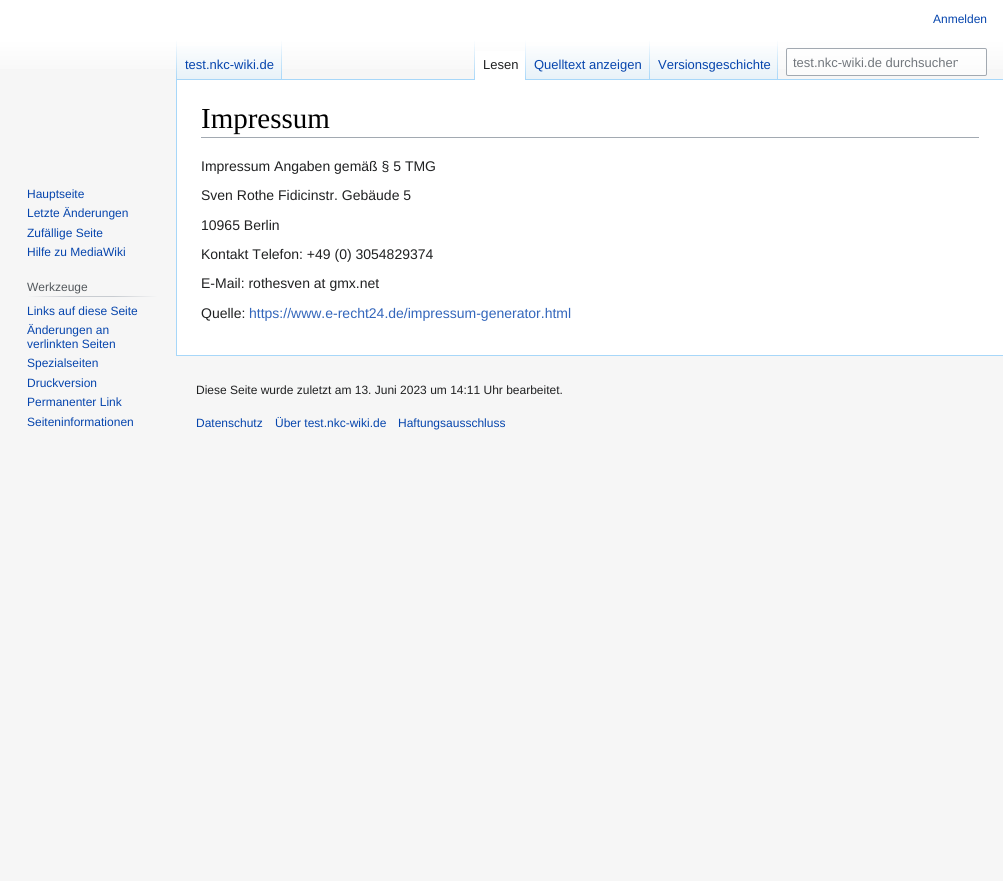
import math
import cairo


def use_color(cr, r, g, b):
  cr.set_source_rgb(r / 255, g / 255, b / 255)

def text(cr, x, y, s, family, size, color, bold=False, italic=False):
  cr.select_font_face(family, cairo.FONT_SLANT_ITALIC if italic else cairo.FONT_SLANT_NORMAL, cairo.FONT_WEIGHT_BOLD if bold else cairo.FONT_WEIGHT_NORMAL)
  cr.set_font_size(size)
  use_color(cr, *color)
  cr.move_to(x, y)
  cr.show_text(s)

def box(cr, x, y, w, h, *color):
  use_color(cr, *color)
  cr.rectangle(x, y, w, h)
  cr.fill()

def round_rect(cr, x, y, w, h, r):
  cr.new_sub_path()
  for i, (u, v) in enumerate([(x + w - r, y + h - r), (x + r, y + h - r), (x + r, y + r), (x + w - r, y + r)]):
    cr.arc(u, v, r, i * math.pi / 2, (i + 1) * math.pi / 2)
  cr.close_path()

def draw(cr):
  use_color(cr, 246, 246, 246)
  cr.paint()
  gradient = cairo.LinearGradient(502, 0, 502, 80)
  gradient.add_color_stop_rgba(0.5, 1, 1, 1, 1)
  gradient.add_color_stop_rgba(1, 0.965, 0.965, 0.965, 1)
  cr.set_source(gradient)
  cr.rectangle(0, 0, 1003, 69)
  cr.fill()
  box(cr, 176, 355, 827, 1, 167, 215, 249)
  box(cr, 176, 79, 1, 277, 167, 215, 249)
  gradient = cairo.LinearGradient(177, 40, 177, 80)
  gradient.add_color_stop_rgba(0, 0.655, 0.843, 0.976, 0)
  gradient.add_color_stop_rgba(1, 0.655, 0.843, 0.976, 1)
  cr.set_source(gradient)
  cr.rectangle(176, 40, 1, 40)
  cr.fill()
  gradient = cairo.LinearGradient(230, 80, 230, 40)
  gradient.add_color_stop_rgba(0, 0.467, 0.757, 0.965, 1)
  gradient.add_color_stop_rgba(0.03, 0.91, 0.949, 0.973, 1)
  gradient.add_color_stop_rgba(1, 1, 1, 1, 1)
  cr.set_source(gradient)
  cr.rectangle(177, 46, 105, 34)
  cr.fill()
  gradient = cairo.LinearGradient(282, 40, 282, 80)
  gradient.add_color_stop_rgba(0, 0.655, 0.843, 0.976, 0)
  gradient.add_color_stop_rgba(1, 0.655, 0.843, 0.976, 1)
  cr.set_source(gradient)
  cr.rectangle(281, 40, 1, 40)
  cr.fill()
  box(cr, 282, 79, 721, 1, 167, 215, 249)
  gradient = cairo.LinearGradient(475, 40, 475, 80)
  gradient.add_color_stop_rgba(0, 0.655, 0.843, 0.976, 0)
  gradient.add_color_stop_rgba(1, 0.655, 0.843, 0.976, 1)
  cr.set_source(gradient)
  cr.rectangle(474, 40, 1, 40)
  cr.fill()
  box(cr, 475, 51, 50, 29, 255, 255, 255)
  gradient = cairo.LinearGradient(526, 40, 526, 80)
  gradient.add_color_stop_rgba(0, 1, 1, 1, 1)
  gradient.add_color_stop_rgba(1, 0.655, 0.843, 0.976, 1)
  cr.set_source(gradient)
  cr.rectangle(525, 40, 1, 40)
  cr.fill()
  gradient = cairo.LinearGradient(588, 80, 588, 40)
  gradient.add_color_stop_rgba(0, 0.467, 0.757, 0.965, 1)
  gradient.add_color_stop_rgba(0.03, 0.91, 0.949, 0.973, 1)
  gradient.add_color_stop_rgba(1, 1, 1, 1, 1)
  cr.set_source(gradient)
  cr.rectangle(526, 46, 124, 33)
  cr.fill()
  gradient = cairo.LinearGradient(650, 40, 650, 80)
  gradient.add_color_stop_rgba(0, 0.655, 0.843, 0.976, 0)
  gradient.add_color_stop_rgba(1, 0.655, 0.843, 0.976, 1)
  cr.set_source(gradient)
  cr.rectangle(649, 40, 1, 40)
  cr.fill()
  gradient = cairo.LinearGradient(714, 80, 714, 40)
  gradient.add_color_stop_rgba(0, 0.467, 0.757, 0.965, 1)
  gradient.add_color_stop_rgba(0.03, 0.91, 0.949, 0.973, 1)
  gradient.add_color_stop_rgba(1, 1, 1, 1, 1)
  cr.set_source(gradient)
  cr.rectangle(650, 46, 128, 33)
  cr.fill()
  gradient = cairo.LinearGradient(778, 40, 778, 80)
  gradient.add_color_stop_rgba(0, 0.655, 0.843, 0.976, 0)
  gradient.add_color_stop_rgba(1, 0.655, 0.843, 0.976, 1)
  cr.set_source(gradient)
  cr.rectangle(777, 40, 1, 40)
  cr.fill()
  cr.set_source_rgba(1, 1, 1, 0.5)
  round_rect(cr, 786.5, 48.5, 200, 27, 1.5)
  cr.fill_preserve()
  use_color(cr, 162, 169, 177)
  cr.set_line_width(1)
  cr.stroke()
  gradient = cairo.LinearGradient(27, 297, 158, 297)
  gradient.add_color_stop_rgba(0, 0.965, 0.965, 0.965, 1)
  gradient.add_color_stop_rgba(0.33, 0.784, 0.8, 0.82, 1)
  gradient.add_color_stop_rgba(0.66, 0.784, 0.8, 0.82, 1)
  gradient.add_color_stop_rgba(1, 0.965, 0.965, 0.965, 1)
  cr.set_source(gradient)
  cr.rectangle(27, 296, 131, 1)
  cr.fill()
  box(cr, 177, 80, 826, 275, 255, 255, 255)
  box(cr, 201, 137, 778, 1, 162, 169, 177)
  text(cr, 933, 23, "Anmelden", "Liberation Sans", 12, (6, 69, 173))
  text(cr, 185, 69, "test.nkc-wiki.de", "Liberation Sans", 13, (6, 69, 173))
  text(cr, 483, 69, "Lesen", "Liberation Sans", 13, (32, 33, 34))
  text(cr, 534, 69, "Quelltext anzeigen", "Liberation Sans", 13, (6, 69, 173))
  text(cr, 658, 69, "Versionsgeschichte", "Liberation Sans", 13, (6, 69, 173))
  cr.save()
  cr.rectangle(793, 55, 165, 15)
  cr.clip()
  text(cr, 793, 67, "test.nkc-wiki.de durchsuchen", "Liberation Sans", 13, (114, 119, 125))
  cr.restore()
  text(cr, 27, 198, "Hauptseite", "Liberation Sans", 12, (6, 69, 173))
  text(cr, 27, 217, "Letzte Änderungen", "Liberation Sans", 12, (6, 69, 173))
  text(cr, 27, 237, "Zufällige Seite", "Liberation Sans", 12, (6, 69, 173))
  text(cr, 27, 256, "Hilfe zu MediaWiki", "Liberation Sans", 12, (6, 69, 173))
  text(cr, 27, 291, "Werkzeuge", "Liberation Sans", 12, (84, 89, 93))
  text(cr, 27, 315, "Links auf diese Seite", "Liberation Sans", 12, (6, 69, 173))
  text(cr, 27, 334, "Änderungen an", "Liberation Sans", 12, (6, 69, 173))
  text(cr, 27, 348, "verlinkten Seiten", "Liberation Sans", 12, (6, 69, 173))
  text(cr, 27, 367, "Spezialseiten", "Liberation Sans", 12, (6, 69, 173))
  text(cr, 27, 387, "Druckversion", "Liberation Sans", 12, (6, 69, 173))
  text(cr, 27, 406, "Permanenter Link", "Liberation Sans", 12, (6, 69, 173))
  text(cr, 27, 426, "Seiteninformationen", "Liberation Sans", 12, (6, 69, 173))
  text(cr, 201, 128, "Impressum", "Liberation Serif", 29, (0, 0, 0))
  text(cr, 201, 171, "Impressum Angaben gemäß § 5 TMG", "Liberation Sans", 14, (32, 33, 34))
  text(cr, 201, 200, "Sven Rothe Fidicinstr. Gebäude 5", "Liberation Sans", 14, (32, 33, 34))
  text(cr, 201, 230, "10965 Berlin", "Liberation Sans", 14, (32, 33, 34))
  text(cr, 201, 259, "Kontakt Telefon: +49 (0) 3054829374", "Liberation Sans", 14, (32, 33, 34))
  text(cr, 201, 288, "E-Mail: rothesven at gmx.net", "Liberation Sans", 14, (32, 33, 34))
  text(cr, 201, 318, "Quelle:", "Liberation Sans", 14, (32, 33, 34))
  text(cr, 249, 318, "https://www.e-recht24.de/impressum-generator.html", "Liberation Sans", 14, (51, 102, 187))
  text(cr, 196, 394, "Diese Seite wurde zuletzt am 13. Juni 2023 um 14:11 Uhr bearbeitet.", "Liberation Sans", 12, (32, 33, 34))
  text(cr, 196, 427, "Datenschutz", "Liberation Sans", 12, (6, 69, 173))
  text(cr, 275, 427, "Über test.nkc-wiki.de", "Liberation Sans", 12, (6, 69, 173))
  text(cr, 398, 427, "Haftungsausschluss", "Liberation Sans", 12, (6, 69, 173))


surface = cairo.ImageSurface(cairo.FORMAT_RGB24, 1003, 881)
cr = cairo.Context(surface)
options = cairo.FontOptions()
options.set_hint_metrics(cairo.HINT_METRICS_OFF)
options.set_hint_style(cairo.HINT_STYLE_NONE)
cr.set_font_options(options)
cr.set_miter_limit(4)
draw(cr)
surface.write_to_png("out.png")
